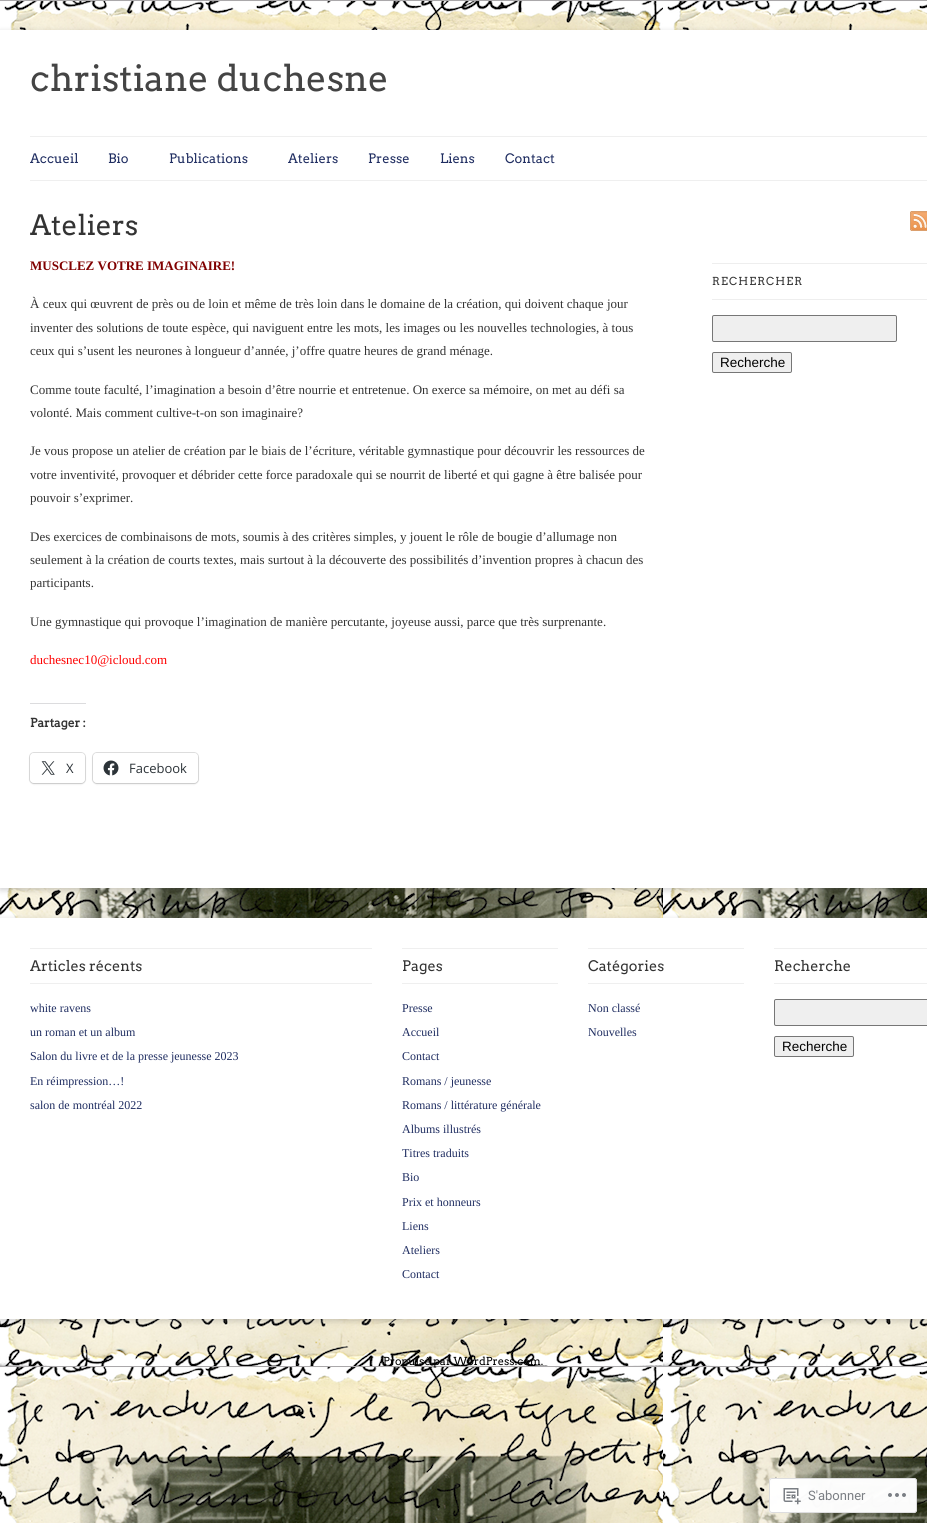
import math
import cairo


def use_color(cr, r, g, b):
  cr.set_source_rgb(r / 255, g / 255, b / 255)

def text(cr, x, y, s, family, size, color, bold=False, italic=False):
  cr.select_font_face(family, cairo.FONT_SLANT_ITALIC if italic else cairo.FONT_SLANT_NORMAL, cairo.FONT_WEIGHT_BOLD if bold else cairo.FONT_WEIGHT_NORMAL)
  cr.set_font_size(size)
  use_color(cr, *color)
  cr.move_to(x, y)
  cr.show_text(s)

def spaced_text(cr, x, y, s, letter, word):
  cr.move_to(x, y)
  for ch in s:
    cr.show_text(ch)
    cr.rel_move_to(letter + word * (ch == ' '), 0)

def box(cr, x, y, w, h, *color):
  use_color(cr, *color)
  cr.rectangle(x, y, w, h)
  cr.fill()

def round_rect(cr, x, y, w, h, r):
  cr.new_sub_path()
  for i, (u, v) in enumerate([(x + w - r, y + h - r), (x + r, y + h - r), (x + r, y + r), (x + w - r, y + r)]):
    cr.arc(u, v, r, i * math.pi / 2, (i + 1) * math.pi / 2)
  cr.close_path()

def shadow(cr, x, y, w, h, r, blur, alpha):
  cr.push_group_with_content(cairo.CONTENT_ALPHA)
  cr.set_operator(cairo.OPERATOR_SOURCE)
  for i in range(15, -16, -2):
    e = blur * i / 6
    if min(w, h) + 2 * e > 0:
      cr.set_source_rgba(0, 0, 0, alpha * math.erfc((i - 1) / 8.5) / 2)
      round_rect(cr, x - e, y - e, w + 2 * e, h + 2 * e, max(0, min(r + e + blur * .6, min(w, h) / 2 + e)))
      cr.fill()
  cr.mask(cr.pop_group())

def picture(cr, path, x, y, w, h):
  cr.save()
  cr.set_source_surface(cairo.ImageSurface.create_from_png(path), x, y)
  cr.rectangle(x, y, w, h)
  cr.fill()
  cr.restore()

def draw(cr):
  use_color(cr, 255, 255, 255)
  cr.paint()
  picture(cr, "img_01.png", 0, 0, 927, 1523)
  use_color(cr, 100, 100, 100)
  shadow(cr, 0, 32, 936, 858, 0, 3, 0.3)
  box(cr, 0, 30, 927, 858, 255, 255, 255)
  box(cr, 30, 136, 897, 1, 239, 239, 239)
  box(cr, 30, 180, 897, 1, 239, 239, 239)
  box(cr, 30, 703, 56, 1, 220, 220, 222)
  round_rect(cr, 29.5, 752.5, 56, 31, 4.5)
  use_color(cr, 224, 224, 224)
  cr.set_line_width(1)
  cr.stroke()
  use_color(cr, 0, 0, 0)
  shadow(cr, 30, 754, 55, 30, 4, 1, 0.12)
  use_color(cr, 255, 255, 255)
  round_rect(cr, 30, 753, 55, 30, 4)
  cr.fill()
  picture(cr, "img_02.png", 41, 761, 14, 14)
  round_rect(cr, 92.5, 752.5, 106, 31, 4.5)
  use_color(cr, 224, 224, 224)
  cr.stroke()
  use_color(cr, 0, 0, 0)
  shadow(cr, 93, 754, 105, 30, 4, 1, 0.12)
  use_color(cr, 255, 255, 255)
  round_rect(cr, 93, 753, 105, 30, 4)
  cr.fill()
  picture(cr, "img_03.png", 103, 760, 16, 16)
  picture(cr, "img_04.png", 910, 211, 17, 20)
  box(cr, 712, 263, 215, 1, 238, 238, 238)
  box(cr, 712, 299, 215, 1, 238, 238, 238)
  use_color(cr, 239, 239, 239)
  round_rect(cr, 712.5, 315.5, 184, 26, 1.5)
  cr.fill_preserve()
  use_color(cr, 118, 118, 118)
  cr.stroke()
  use_color(cr, 239, 239, 239)
  round_rect(cr, 712.5, 352.5, 79, 20, 1.5)
  cr.fill_preserve()
  use_color(cr, 118, 118, 118)
  cr.stroke()
  use_color(cr, 100, 100, 100)
  shadow(cr, 0, 920, 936, 401, 0, 3, 0.3)
  box(cr, 0, 918, 927, 401, 255, 255, 255)
  box(cr, 30, 948, 342, 1, 239, 239, 239)
  box(cr, 30, 983, 342, 1, 239, 239, 239)
  box(cr, 402, 948, 156, 1, 239, 239, 239)
  box(cr, 402, 983, 156, 1, 239, 239, 239)
  box(cr, 588, 948, 156, 1, 239, 239, 239)
  box(cr, 588, 983, 156, 1, 239, 239, 239)
  box(cr, 774, 948, 153, 1, 239, 239, 239)
  box(cr, 774, 983, 153, 1, 239, 239, 239)
  round_rect(cr, 774.5, 999.5, 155, 26, 1.5)
  cr.fill_preserve()
  use_color(cr, 118, 118, 118)
  cr.stroke()
  use_color(cr, 239, 239, 239)
  round_rect(cr, 774.5, 1036.5, 79, 20, 1.5)
  cr.fill_preserve()
  use_color(cr, 118, 118, 118)
  cr.stroke()
  cr.set_source_rgba(1, 1, 1, 0.98)
  round_rect(cr, 769, 1478, 148, 35, 3)
  cr.fill()
  round_rect(cr, 769.5, 1478.5, 147, 34, 2.5)
  cr.set_source_rgba(0.863, 0.863, 0.871, 0.98)
  cr.stroke()
  picture(cr, "img_05.png", 783, 1488, 18, 17)
  picture(cr, "img_06.png", 888, 1493, 18, 4)
  text(cr, 30, 91, "christiane duchesne", "Arvo", 36, (68, 68, 68))
  text(cr, 30, 163, "Accueil", "Arvo", 13, (31, 45, 97))
  text(cr, 108, 163, "Bio", "Arvo", 13, (31, 45, 97))
  text(cr, 169, 163, "Publications", "Arvo", 13, (31, 45, 97))
  text(cr, 288, 163, "Ateliers", "Arvo", 13, (31, 45, 97))
  text(cr, 368, 163, "Presse", "Arvo", 13, (31, 45, 97))
  text(cr, 440, 163, "Liens", "Arvo", 13, (31, 45, 97))
  text(cr, 505, 163, "Contact", "Arvo", 13, (31, 45, 97))
  text(cr, 30, 235, "Ateliers", "Arvo", 28, (51, 51, 51))
  text(cr, 30, 270, "MUSCLEZ VOTRE IMAGINAIRE!", "Liberation Serif", 13, (128, 0, 0), bold=True)
  text(cr, 30, 308, "À ceux qui œuvrent de près ou de loin et même de très loin dans le domaine de la création, qui doivent chaque jour", "Liberation Serif", 13, (51, 51, 51))
  text(cr, 30, 332, "inventer des solutions de toute espèce, qui naviguent entre les mots, les images ou les nouvelles technologies, à tous", "Liberation Serif", 13, (51, 51, 51))
  text(cr, 30, 355, "ceux qui s’usent les neurones à longueur d’année, j’offre quatre heures de grand ménage.", "Liberation Serif", 13, (51, 51, 51))
  text(cr, 30, 394, "Comme toute faculté, l’imagination a besoin d’être nourrie et entretenue. On exerce sa mémoire, on met au défi sa", "Liberation Serif", 13, (51, 51, 51))
  text(cr, 30, 417, "volonté. Mais comment cultive-t-on son imaginaire?", "Liberation Serif", 13, (51, 51, 51))
  text(cr, 30, 455, "Je vous propose un atelier de création par le biais de l’écriture, véritable gymnastique pour découvrir les ressources de", "Liberation Serif", 13, (51, 51, 51))
  text(cr, 30, 479, "votre inventivité, provoquer et débrider cette force paradoxale qui se nourrit de liberté et qui gagne à être balisée pour", "Liberation Serif", 13, (51, 51, 51))
  text(cr, 30, 502, "pouvoir s’exprimer.", "Liberation Serif", 13, (51, 51, 51))
  text(cr, 30, 541, "Des exercices de combinaisons de mots, soumis à des critères simples, y jouent le rôle de bougie d’allumage non", "Liberation Serif", 13, (51, 51, 51))
  text(cr, 30, 564, "seulement à la création de courts textes, mais surtout à la découverte des possibilités d’invention propres à chacun des", "Liberation Serif", 13, (51, 51, 51))
  text(cr, 30, 587, "participants.", "Liberation Serif", 13, (51, 51, 51))
  text(cr, 30, 626, "Une gymnastique qui provoque l’imagination de manière percutante, joyeuse aussi, parce que très surprenante.", "Liberation Serif", 13, (51, 51, 51))
  text(cr, 30, 664, "duchesnec10@icloud.com", "Liberation Serif", 13, (255, 0, 0))
  text(cr, 30, 727, "Partager :", "Arvo", 12, (51, 51, 51), bold=True)
  text(cr, 66, 773, "X", "Open Sans", 13, (44, 51, 56))
  text(cr, 129, 773, "Facebook", "Open Sans", 13, (44, 51, 56))
  cr.select_font_face("Arvo")
  cr.set_font_size(11)
  use_color(cr, 51, 51, 51)
  spaced_text(cr, 712, 285, "RECHERCHER", 1.1, 0)
  text(cr, 720, 367, "Recherche", "Liberation Sans", 13.5, (0, 0, 0))
  text(cr, 30, 971, "Articles récents", "Arvo", 14.5, (51, 51, 51))
  text(cr, 30, 1012, "white ravens", "Liberation Serif", 12, (31, 45, 97))
  text(cr, 30, 1036, "un roman et un album", "Liberation Serif", 12, (31, 45, 97))
  text(cr, 30, 1060, "Salon du livre et de la presse jeunesse 2023", "Liberation Serif", 12, (31, 45, 97))
  text(cr, 30, 1085, "En réimpression…!", "Liberation Serif", 12, (31, 45, 97))
  text(cr, 30, 1109, "salon de montréal 2022", "Liberation Serif", 12, (31, 45, 97))
  text(cr, 402, 971, "Pages", "Arvo", 14.5, (51, 51, 51))
  text(cr, 402, 1012, "Presse", "Liberation Serif", 12, (31, 45, 97))
  text(cr, 402, 1036, "Accueil", "Liberation Serif", 12, (31, 45, 97))
  text(cr, 402, 1060, "Contact", "Liberation Serif", 12, (31, 45, 97))
  text(cr, 402, 1085, "Romans / jeunesse", "Liberation Serif", 12, (31, 45, 97))
  text(cr, 402, 1109, "Romans / littérature générale", "Liberation Serif", 12, (31, 45, 97))
  text(cr, 402, 1133, "Albums illustrés", "Liberation Serif", 12, (31, 45, 97))
  text(cr, 402, 1157, "Titres traduits", "Liberation Serif", 12, (31, 45, 97))
  text(cr, 402, 1181, "Bio", "Liberation Serif", 12, (31, 45, 97))
  text(cr, 402, 1206, "Prix et honneurs", "Liberation Serif", 12, (31, 45, 97))
  text(cr, 402, 1230, "Liens", "Liberation Serif", 12, (31, 45, 97))
  text(cr, 402, 1254, "Ateliers", "Liberation Serif", 12, (31, 45, 97))
  text(cr, 402, 1278, "Contact", "Liberation Serif", 12, (31, 45, 97))
  text(cr, 588, 971, "Catégories", "Arvo", 14.5, (51, 51, 51))
  text(cr, 588, 1012, "Non classé", "Liberation Serif", 12, (31, 45, 97))
  text(cr, 588, 1036, "Nouvelles", "Liberation Serif", 12, (31, 45, 97))
  text(cr, 774, 971, "Recherche", "Arvo", 14.5, (51, 51, 51))
  text(cr, 782, 1051, "Recherche", "Liberation Sans", 13.5, (0, 0, 0))
  text(cr, 383, 1365, "Propulsé par WordPress.com.", "Arvo", 11, (0, 0, 0))
  text(cr, 808, 1500, "S'abonner", "Roboto", 13, (123, 127, 132))


surface = cairo.ImageSurface(cairo.FORMAT_RGB24, 927, 1523)
cr = cairo.Context(surface)
options = cairo.FontOptions()
options.set_hint_metrics(cairo.HINT_METRICS_OFF)
options.set_hint_style(cairo.HINT_STYLE_NONE)
cr.set_font_options(options)
cr.set_miter_limit(4)
draw(cr)
surface.write_to_png("out.png")
